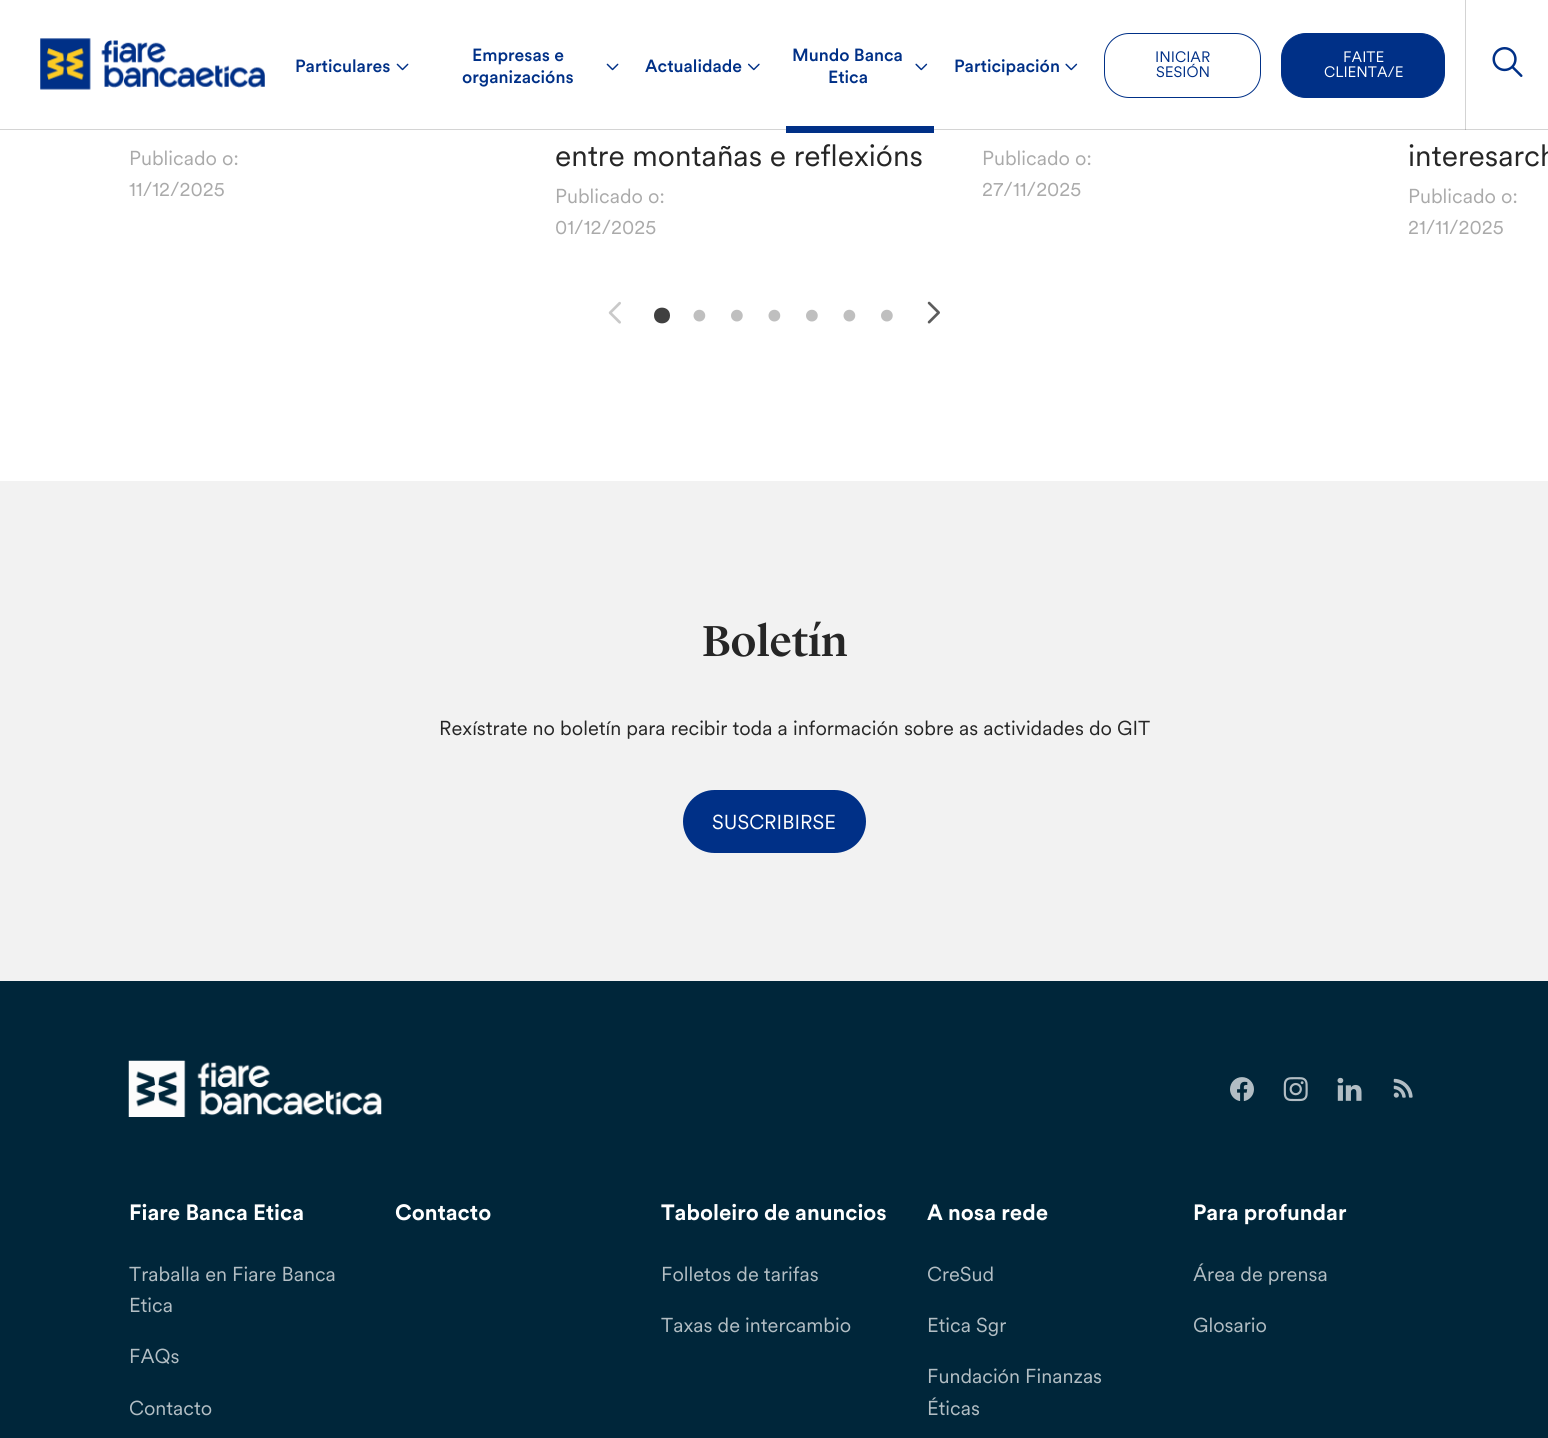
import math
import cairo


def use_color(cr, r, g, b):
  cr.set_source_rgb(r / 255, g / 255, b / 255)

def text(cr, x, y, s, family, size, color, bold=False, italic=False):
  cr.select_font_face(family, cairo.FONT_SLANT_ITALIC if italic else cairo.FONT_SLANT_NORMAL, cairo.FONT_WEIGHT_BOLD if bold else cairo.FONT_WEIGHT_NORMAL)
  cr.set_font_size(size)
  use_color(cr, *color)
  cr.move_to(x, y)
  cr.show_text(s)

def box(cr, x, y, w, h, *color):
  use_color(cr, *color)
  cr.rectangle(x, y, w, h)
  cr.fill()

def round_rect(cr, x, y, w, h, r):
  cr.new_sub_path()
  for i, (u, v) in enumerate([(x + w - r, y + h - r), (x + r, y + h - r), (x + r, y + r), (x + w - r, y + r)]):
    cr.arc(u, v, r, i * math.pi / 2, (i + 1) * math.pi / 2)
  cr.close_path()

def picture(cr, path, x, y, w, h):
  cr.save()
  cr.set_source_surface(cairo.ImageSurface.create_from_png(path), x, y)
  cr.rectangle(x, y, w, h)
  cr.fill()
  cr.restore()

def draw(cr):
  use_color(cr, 255, 255, 255)
  cr.paint()
  box(cr, 0, 129, 1548, 1, 212, 212, 212)
  picture(cr, "img_01.png", 40, 38, 225, 52)
  picture(cr, "img_02.png", 396, 63, 13, 8)
  picture(cr, "img_02.png", 606, 63, 13, 8)
  picture(cr, "img_03.png", 748, 63, 12, 8)
  box(cr, 786, 126, 148, 7, 0, 48, 135)
  picture(cr, "img_04.png", 915, 63, 13, 8)
  picture(cr, "img_04.png", 1065, 63, 13, 8)
  round_rect(cr, 1104.5, 33.5, 156, 64, 24.5)
  cr.set_line_width(1)
  cr.stroke()
  round_rect(cr, 1281.5, 33.5, 163, 64, 24.5)
  cr.fill_preserve()
  cr.stroke()
  cr.set_source_rgba(0.149, 0.149, 0.149, 0.2)
  cr.rectangle(1465, 0, 1, 130)
  cr.fill()
  picture(cr, "img_05.png", 1492, 47, 31, 30)
  picture(cr, "img_06.png", 608, 301, 13, 23)
  use_color(cr, 64, 64, 64)
  cr.new_path()
  cr.move_to(670, 315.5)
  cr.curve_to(670, 305, 654, 305, 654, 315.5)
  cr.curve_to(654, 326, 670, 326, 670, 315.5)
  cr.close_path()
  cr.fill()
  picture(cr, "img_07.png", 693, 309, 13, 13)
  picture(cr, "img_08.png", 731, 309, 12, 13)
  picture(cr, "img_07.png", 768, 309, 13, 13)
  picture(cr, "img_08.png", 806, 309, 12, 13)
  picture(cr, "img_07.png", 843, 309, 13, 13)
  picture(cr, "img_08.png", 881, 309, 12, 13)
  picture(cr, "img_09.png", 927, 301, 13, 23)
  box(cr, 0, 481, 1548, 500, 242, 242, 242)
  use_color(cr, 0, 48, 135)
  round_rect(cr, 683, 790, 183, 63, 31.5)
  cr.fill()
  box(cr, 0, 981, 1548, 457, 0, 38, 58)
  picture(cr, "img_10.png", 128, 1060, 254, 57)
  picture(cr, "img_11.png", 1230, 1077, 24, 24)
  picture(cr, "img_12.png", 1283, 1077, 25, 25)
  picture(cr, "img_13.png", 1337, 1077, 25, 24)
  picture(cr, "img_14.png", 1393, 1078, 20, 20)
  text(cr, 295, 72, "Particulares", "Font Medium", 17.5, (0, 48, 135))
  text(cr, 472, 61, "Empresas e", "Font Medium", 17.5, (0, 48, 135))
  text(cr, 462, 83, "organizacións", "Font Medium", 17.5, (0, 48, 135))
  text(cr, 645, 72, "Actualidade", "Font Medium", 17.5, (0, 48, 135))
  text(cr, 792, 61, "Mundo Banca", "Font Medium", 17.5, (0, 48, 135))
  text(cr, 828, 83, "Etica", "Font Medium", 17.5, (0, 48, 135))
  text(cr, 954, 72, "Participación", "Font Medium", 17.5, (0, 48, 135))
  text(cr, 1155, 62, "INICIAR", "Font", 15, (0, 48, 135))
  text(cr, 1156, 77, "SESIÓN", "Font", 15, (0, 48, 135))
  text(cr, 1343, 62, "FAITE", "Font", 15, (255, 255, 255))
  text(cr, 1324, 77, "CLIENTA/E", "Font", 15, (255, 255, 255))
  text(cr, 129, 165, "Publicado o:", "Font", 20, (170, 170, 170))
  text(cr, 129, 196, "11/12/2025", "Font", 20, (170, 170, 170))
  text(cr, 555, 166, "entre montañas e reflexións", "Font", 30, (38, 38, 38))
  text(cr, 555, 203, "Publicado o:", "Font", 20, (170, 170, 170))
  text(cr, 555, 234, "01/12/2025", "Font", 20, (170, 170, 170))
  text(cr, 982, 165, "Publicado o:", "Font", 20, (170, 170, 170))
  text(cr, 982, 196, "27/11/2025", "Font", 20, (170, 170, 170))
  text(cr, 1408, 166, "interesarch", "Font", 30, (38, 38, 38))
  text(cr, 1408, 203, "Publicado o:", "Font", 20, (170, 170, 170))
  text(cr, 1408, 234, "21/11/2025", "Font", 20, (170, 170, 170))
  text(cr, 702, 656, "Boletín", "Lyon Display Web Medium", 45, (38, 38, 38))
  text(cr, 439, 735, "Rexístrate no boletín para recibir toda a información sobre as actividades do GIT", "Font", 20, (38, 38, 38))
  text(cr, 712, 829, "SUSCRIBIRSE", "Font", 20, (255, 255, 255))
  text(cr, 129, 1220, "Fiare Banca Etica", "Font", 22, (255, 255, 255), bold=True)
  text(cr, 129, 1281, "Traballa en Fiare Banca", "Font", 20, (179, 190, 196))
  text(cr, 129, 1312, "Etica", "Font", 20, (179, 190, 196))
  text(cr, 129, 1363, "FAQs", "Font", 20, (179, 190, 196))
  text(cr, 129, 1415, "Contacto", "Font", 20, (179, 190, 196))
  text(cr, 395, 1220, "Contacto", "Font", 22, (255, 255, 255), bold=True)
  text(cr, 661, 1220, "Taboleiro de anuncios", "Font", 22, (255, 255, 255), bold=True)
  text(cr, 661, 1281, "Folletos de tarifas", "Font", 20, (179, 190, 196))
  text(cr, 661, 1332, "Taxas de intercambio", "Font", 20, (179, 190, 196))
  text(cr, 927, 1220, "A nosa rede", "Font", 22, (255, 255, 255), bold=True)
  text(cr, 927, 1281, "CreSud", "Font", 20, (179, 190, 196))
  text(cr, 927, 1332, "Etica Sgr", "Font", 20, (179, 190, 196))
  text(cr, 927, 1383, "Fundación Finanzas", "Font", 20, (179, 190, 196))
  text(cr, 927, 1415, "Éticas", "Font", 20, (179, 190, 196))
  text(cr, 1193, 1220, "Para profundar", "Font", 22, (255, 255, 255), bold=True)
  text(cr, 1193, 1281, "Área de prensa", "Font", 20, (179, 190, 196))
  text(cr, 1193, 1332, "Glosario", "Font", 20, (179, 190, 196))


surface = cairo.ImageSurface(cairo.FORMAT_RGB24, 1548, 1438)
cr = cairo.Context(surface)
options = cairo.FontOptions()
options.set_hint_metrics(cairo.HINT_METRICS_OFF)
options.set_hint_style(cairo.HINT_STYLE_NONE)
cr.set_font_options(options)
cr.set_miter_limit(4)
draw(cr)
surface.write_to_png("out.png")
